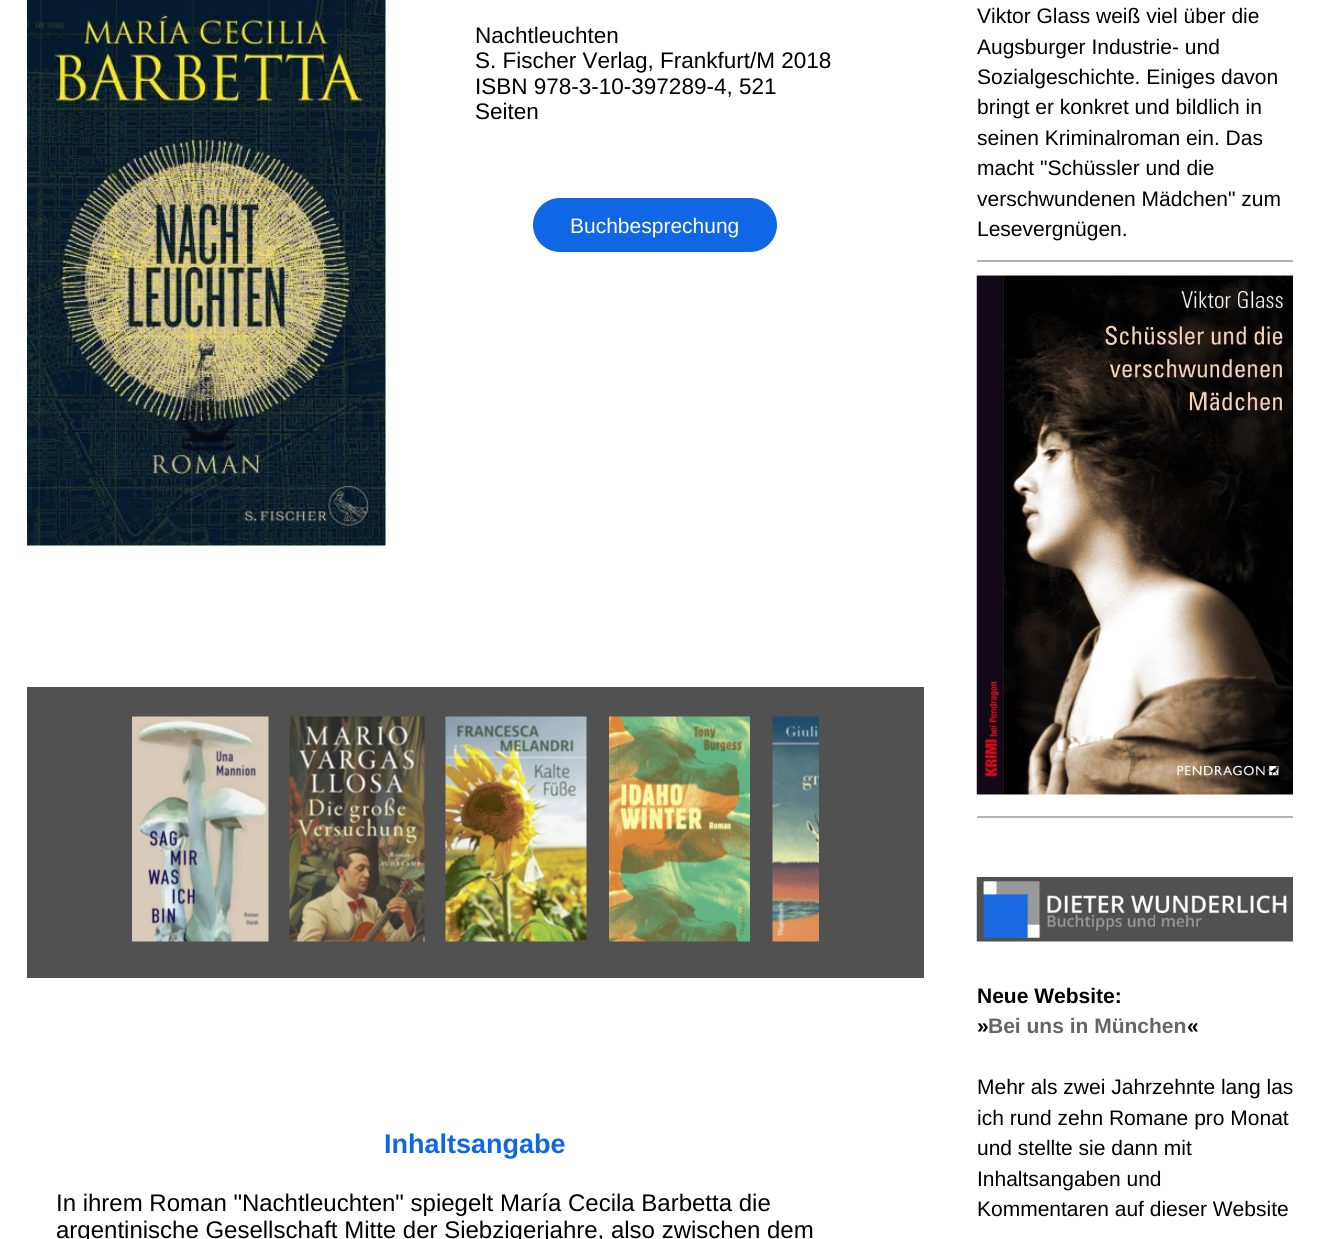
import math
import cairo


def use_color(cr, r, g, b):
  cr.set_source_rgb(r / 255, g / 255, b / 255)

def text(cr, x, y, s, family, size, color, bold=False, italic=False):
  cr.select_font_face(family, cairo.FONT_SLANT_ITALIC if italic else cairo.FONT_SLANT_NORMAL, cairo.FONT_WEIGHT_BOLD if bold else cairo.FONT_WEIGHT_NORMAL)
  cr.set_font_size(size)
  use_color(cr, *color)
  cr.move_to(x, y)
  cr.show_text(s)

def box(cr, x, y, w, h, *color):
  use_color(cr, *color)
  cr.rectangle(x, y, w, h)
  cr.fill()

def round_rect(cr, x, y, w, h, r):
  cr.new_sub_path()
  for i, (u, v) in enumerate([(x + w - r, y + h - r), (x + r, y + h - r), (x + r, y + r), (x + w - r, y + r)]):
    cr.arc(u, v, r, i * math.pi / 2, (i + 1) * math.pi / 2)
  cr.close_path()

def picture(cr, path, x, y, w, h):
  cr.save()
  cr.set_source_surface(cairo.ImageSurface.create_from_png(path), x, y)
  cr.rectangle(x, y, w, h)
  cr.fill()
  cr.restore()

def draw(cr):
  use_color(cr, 255, 255, 255)
  cr.paint()
  picture(cr, "img_01.png", 27, 0, 359, 546)
  use_color(cr, 15, 103, 229)
  round_rect(cr, 533, 198, 244, 54, 27)
  cr.fill()
  box(cr, 27, 687, 897, 291, 81, 81, 81)
  picture(cr, "img_02.png", 132, 716, 137, 226)
  picture(cr, "img_03.png", 289, 716, 136, 226)
  picture(cr, "img_04.png", 445, 716, 142, 226)
  picture(cr, "img_05.png", 609, 716, 141, 226)
  picture(cr, "img_06.png", 772, 716, 47, 226)
  box(cr, 977, 816, 316, 2, 179, 179, 179)
  box(cr, 977, 260, 316, 2, 179, 179, 179)
  picture(cr, "img_07.png", 976, 275, 317, 520)
  picture(cr, "img_08.png", 976, 877, 317, 65)
  text(cr, 475, 43, "Nachtleuchten", "Liberation Sans", 22.5, (0, 0, 0))
  text(cr, 475, 68, "S. Fischer Verlag, Frankfurt/M 2018", "Liberation Sans", 22.5, (0, 0, 0))
  text(cr, 475, 94, "ISBN 978-3-10-397289-4, 521", "Liberation Sans", 22.5, (0, 0, 0))
  text(cr, 475, 119, "Seiten", "Liberation Sans", 22.5, (0, 0, 0))
  text(cr, 570, 233, "Buchbesprechung", "Liberation Sans", 21, (255, 255, 255))
  text(cr, 384, 1153, "Inhaltsangabe", "Liberation Sans", 27, (15, 103, 229), bold=True)
  text(cr, 56, 1211, "In ihrem Roman \"Nachtleuchten\" spiegelt María Cecila Barbetta die", "Liberation Sans", 24, (0, 0, 0))
  text(cr, 56, 1238, "argentinische Gesellschaft Mitte der Siebzigerjahre, also zwischen dem", "Liberation Sans", 24, (0, 0, 0))
  text(cr, 977, 23, "Viktor Glass weiß viel über die", "Liberation Sans", 21, (0, 0, 0))
  text(cr, 977, 54, "Augsburger Industrie- und", "Liberation Sans", 21, (0, 0, 0))
  text(cr, 977, 84, "Sozialgeschichte. Einiges davon", "Liberation Sans", 21, (0, 0, 0))
  text(cr, 977, 114, "bringt er konkret und bildlich in", "Liberation Sans", 21, (0, 0, 0))
  text(cr, 977, 145, "seinen Kriminalroman ein. Das", "Liberation Sans", 21, (0, 0, 0))
  text(cr, 977, 175, "macht \"Schüssler und die", "Liberation Sans", 21, (0, 0, 0))
  text(cr, 977, 206, "verschwundenen Mädchen\" zum", "Liberation Sans", 21, (0, 0, 0))
  text(cr, 977, 236, "Lesevergnügen.", "Liberation Sans", 21, (0, 0, 0))
  text(cr, 977, 1003, "Neue Website:", "Liberation Sans", 21, (0, 0, 0), bold=True)
  text(cr, 977, 1033, "»", "Liberation Sans", 21, (0, 0, 0), bold=True)
  text(cr, 988, 1033, "Bei uns in München", "Liberation Sans", 21, (102, 102, 102), bold=True)
  text(cr, 1187, 1033, "«", "Liberation Sans", 21, (0, 0, 0), bold=True)
  text(cr, 977, 1094, "Mehr als zwei Jahrzehnte lang las", "Liberation Sans", 21, (0, 0, 0))
  text(cr, 977, 1125, "ich rund zehn Romane pro Monat", "Liberation Sans", 21, (0, 0, 0))
  text(cr, 977, 1155, "und stellte sie dann mit", "Liberation Sans", 21, (0, 0, 0))
  text(cr, 977, 1186, "Inhaltsangaben und", "Liberation Sans", 21, (0, 0, 0))
  text(cr, 977, 1216, "Kommentaren auf dieser Website", "Liberation Sans", 21, (0, 0, 0))


surface = cairo.ImageSurface(cairo.FORMAT_RGB24, 1320, 1239)
cr = cairo.Context(surface)
options = cairo.FontOptions()
options.set_hint_metrics(cairo.HINT_METRICS_OFF)
options.set_hint_style(cairo.HINT_STYLE_NONE)
cr.set_font_options(options)
cr.set_miter_limit(4)
draw(cr)
surface.write_to_png("out.png")
